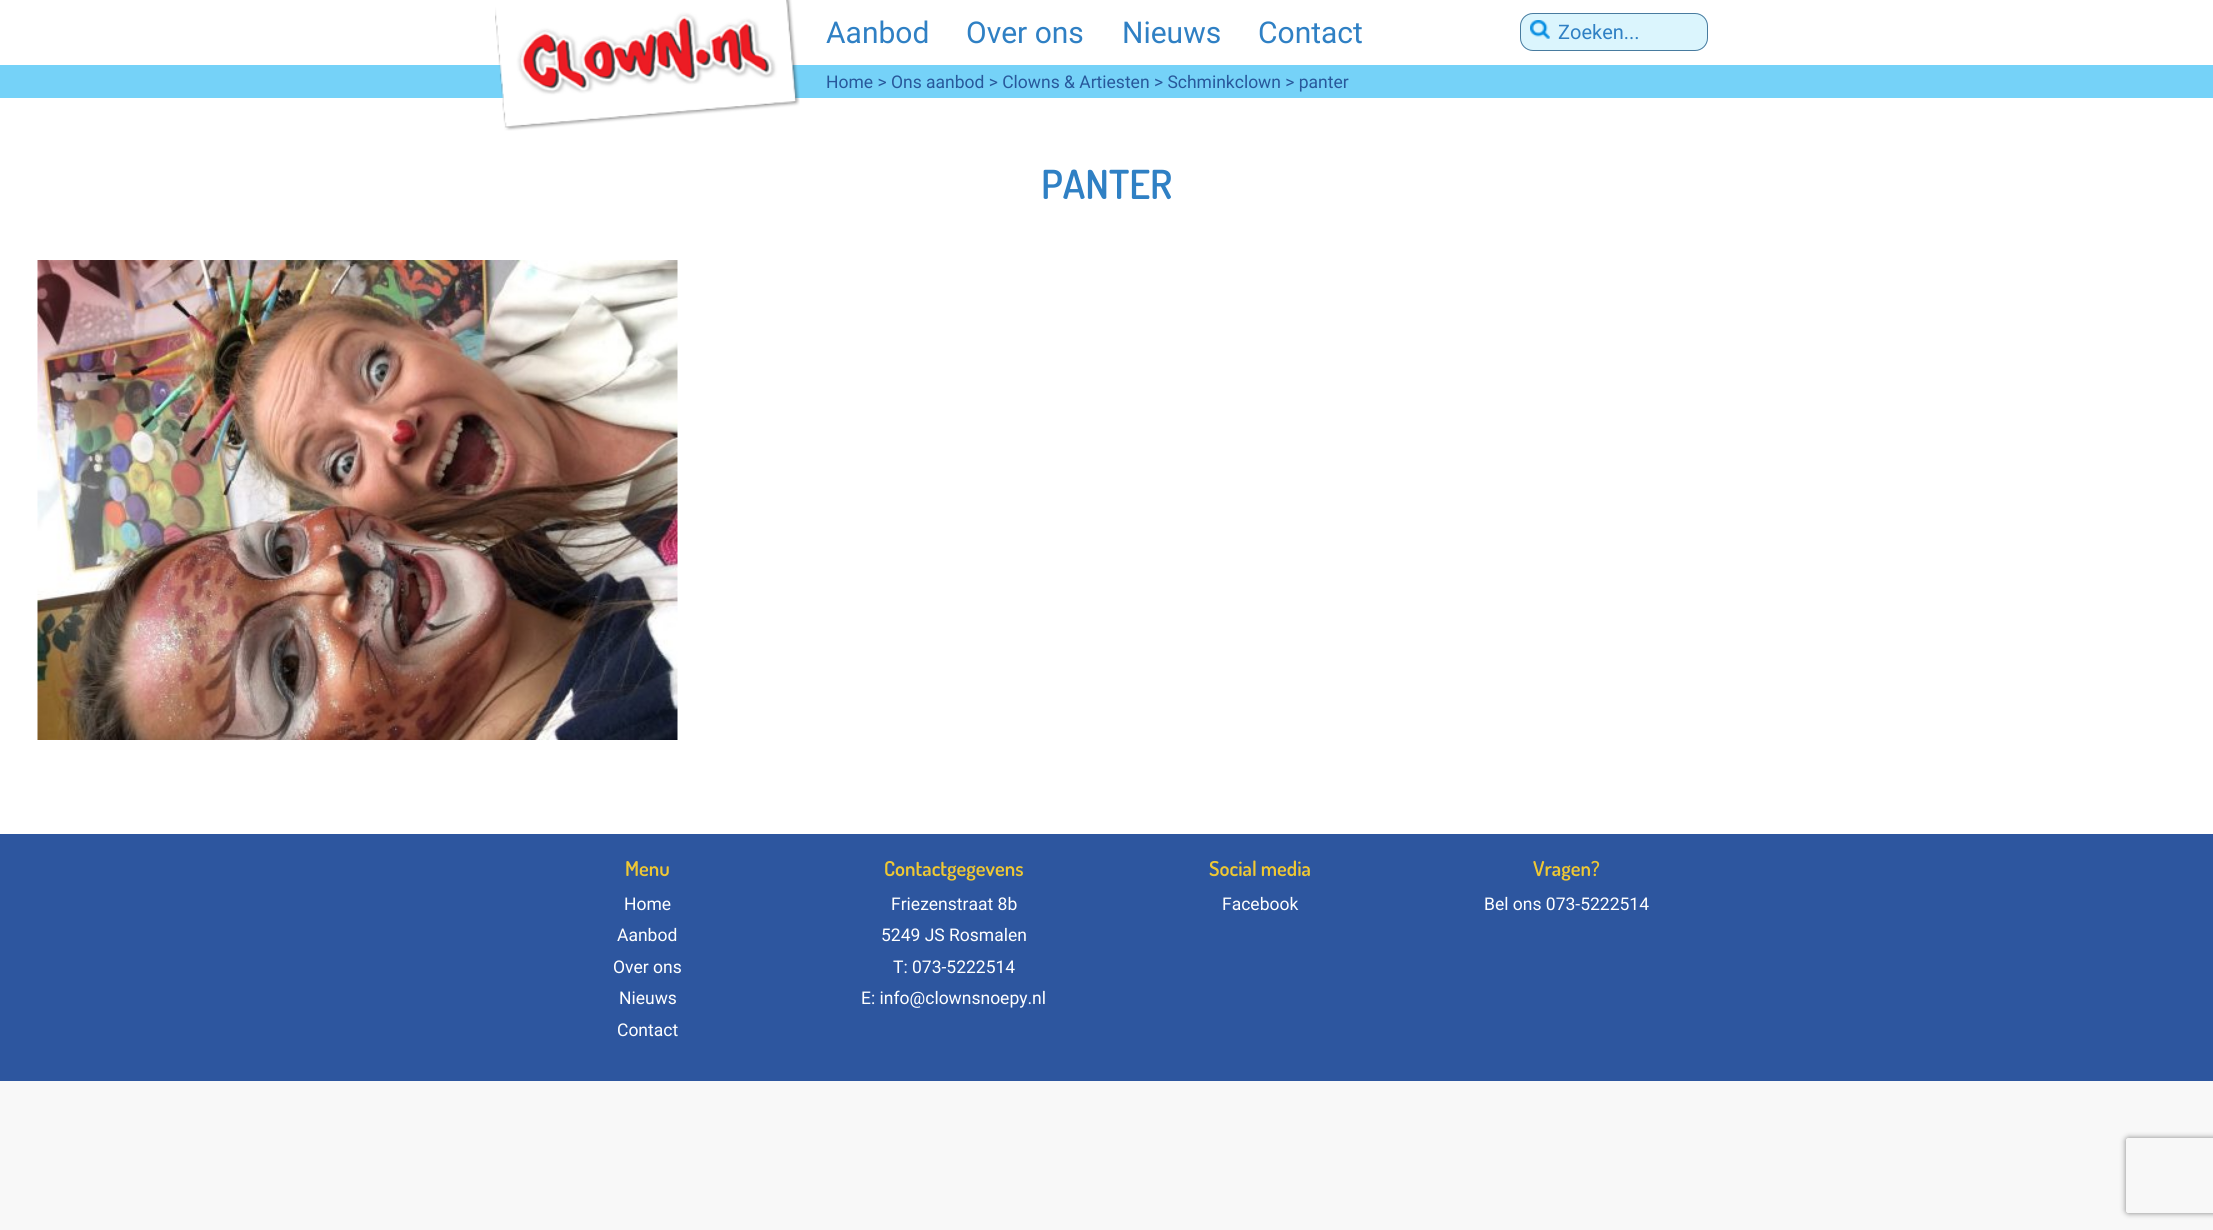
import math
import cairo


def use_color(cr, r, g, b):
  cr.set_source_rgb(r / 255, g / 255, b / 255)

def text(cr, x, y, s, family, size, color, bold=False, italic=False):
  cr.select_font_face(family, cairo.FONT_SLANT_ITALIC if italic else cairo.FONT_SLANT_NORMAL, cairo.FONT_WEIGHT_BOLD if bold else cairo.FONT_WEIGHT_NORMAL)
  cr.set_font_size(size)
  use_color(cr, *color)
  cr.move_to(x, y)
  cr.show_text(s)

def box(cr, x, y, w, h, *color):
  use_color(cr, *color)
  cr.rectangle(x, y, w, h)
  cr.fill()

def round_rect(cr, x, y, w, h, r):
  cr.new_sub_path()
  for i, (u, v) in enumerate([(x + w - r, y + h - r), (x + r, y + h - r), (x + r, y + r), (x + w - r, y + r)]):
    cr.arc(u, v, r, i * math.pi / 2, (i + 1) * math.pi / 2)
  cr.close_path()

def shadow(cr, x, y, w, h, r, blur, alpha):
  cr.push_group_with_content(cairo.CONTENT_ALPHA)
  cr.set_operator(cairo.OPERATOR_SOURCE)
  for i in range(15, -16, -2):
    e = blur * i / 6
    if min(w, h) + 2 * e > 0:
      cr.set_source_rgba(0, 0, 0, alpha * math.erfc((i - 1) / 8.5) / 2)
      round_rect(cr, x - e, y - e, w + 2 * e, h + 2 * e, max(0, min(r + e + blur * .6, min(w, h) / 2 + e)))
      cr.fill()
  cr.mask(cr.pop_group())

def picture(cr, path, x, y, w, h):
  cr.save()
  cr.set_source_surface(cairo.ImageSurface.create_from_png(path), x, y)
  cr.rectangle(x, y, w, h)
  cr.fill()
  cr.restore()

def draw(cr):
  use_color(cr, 248, 248, 248)
  cr.paint()
  box(cr, 0, 0, 2213, 834, 255, 255, 255)
  box(cr, 0, 65, 2213, 33, 117, 210, 248)
  picture(cr, "img_01.png", 495, 0, 305, 131)
  use_color(cr, 219, 245, 253)
  round_rect(cr, 1520, 13, 188, 38, 13)
  cr.fill()
  picture(cr, "img_02.png", 1530, 20, 20, 19)
  round_rect(cr, 1520.5, 13.5, 187, 37, 12.5)
  use_color(cr, 72, 123, 159)
  cr.set_line_width(1)
  cr.stroke()
  picture(cr, "img_03.png", 37, 260, 641, 480)
  box(cr, 0, 834, 2213, 247, 45, 86, 159)
  cr.save()
  cr.set_fill_rule(cairo.FILL_RULE_EVEN_ODD)
  cr.new_path()
  cr.move_to(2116, 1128)
  cr.line_to(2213, 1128)
  cr.line_to(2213, 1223)
  cr.line_to(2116, 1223)
  cr.close_path()
  cr.move_to(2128.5, 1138)
  cr.line_to(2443.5, 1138)
  cr.curve_to(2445, 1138, 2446, 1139, 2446, 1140.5)
  cr.line_to(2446, 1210.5)
  cr.curve_to(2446, 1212, 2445, 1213, 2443.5, 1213)
  cr.line_to(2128.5, 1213)
  cr.curve_to(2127, 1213, 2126, 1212, 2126, 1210.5)
  cr.line_to(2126, 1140.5)
  cr.curve_to(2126, 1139, 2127, 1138, 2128.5, 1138)
  cr.close_path()
  cr.clip()
  use_color(cr, 128, 128, 128)
  shadow(cr, 2126, 1138, 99, 75, 2.5, 3, 1)
  cr.restore()
  text(cr, 826, 43, "Aanbod", "Roboto", 30, (47, 128, 196))
  text(cr, 966, 43, "Over ons", "Roboto", 30, (47, 128, 196))
  text(cr, 1122, 43, "Nieuws", "Roboto", 30, (47, 128, 196))
  text(cr, 1258, 43, "Contact", "Roboto", 30, (47, 128, 196))
  text(cr, 1558, 39, "Zoeken...", "Roboto", 20, (47, 128, 196))
  text(cr, 826, 88, "Home > Ons aanbod > Clowns & Artiesten > Schminkclown > panter", "Roboto", 17.5, (40, 88, 155))
  text(cr, 1041, 199, "PANTER", "Dosis SemiBold", 40, (47, 128, 196))
  text(cr, 625, 876, "Menu", "Dosis SemiBold", 20.5, (239, 200, 51))
  text(cr, 624, 910, "Home", "Roboto", 17.5, (255, 255, 255))
  text(cr, 617, 941, "Aanbod", "Roboto", 17.5, (255, 255, 255))
  text(cr, 613, 973, "Over ons", "Roboto", 17.5, (255, 255, 255))
  text(cr, 619, 1004, "Nieuws", "Roboto", 17.5, (255, 255, 255))
  text(cr, 617, 1036, "Contact", "Roboto", 17.5, (255, 255, 255))
  text(cr, 884, 876, "Contactgegevens", "Dosis SemiBold", 20.5, (239, 200, 51))
  text(cr, 891, 910, "Friezenstraat 8b", "Roboto", 17.5, (255, 255, 255))
  text(cr, 881, 941, "5249 JS Rosmalen", "Roboto", 17.5, (255, 255, 255))
  text(cr, 893, 973, "T: 073-5222514", "Roboto", 17.5, (255, 255, 255))
  text(cr, 861, 1004, "E: info@clownsnoepy.nl", "Roboto", 17.5, (255, 255, 255))
  text(cr, 1209, 876, "Social media", "Dosis SemiBold", 20.5, (239, 200, 51))
  text(cr, 1222, 910, "Facebook", "Roboto", 17.5, (255, 255, 255))
  text(cr, 1533, 876, "Vragen?", "Dosis SemiBold", 20.5, (239, 200, 51))
  text(cr, 1484, 910, "Bel ons 073-5222514", "Roboto", 17.5, (255, 255, 255))


surface = cairo.ImageSurface(cairo.FORMAT_RGB24, 2213, 1230)
cr = cairo.Context(surface)
options = cairo.FontOptions()
options.set_hint_metrics(cairo.HINT_METRICS_OFF)
options.set_hint_style(cairo.HINT_STYLE_NONE)
cr.set_font_options(options)
cr.set_miter_limit(4)
draw(cr)
surface.write_to_png("out.png")
